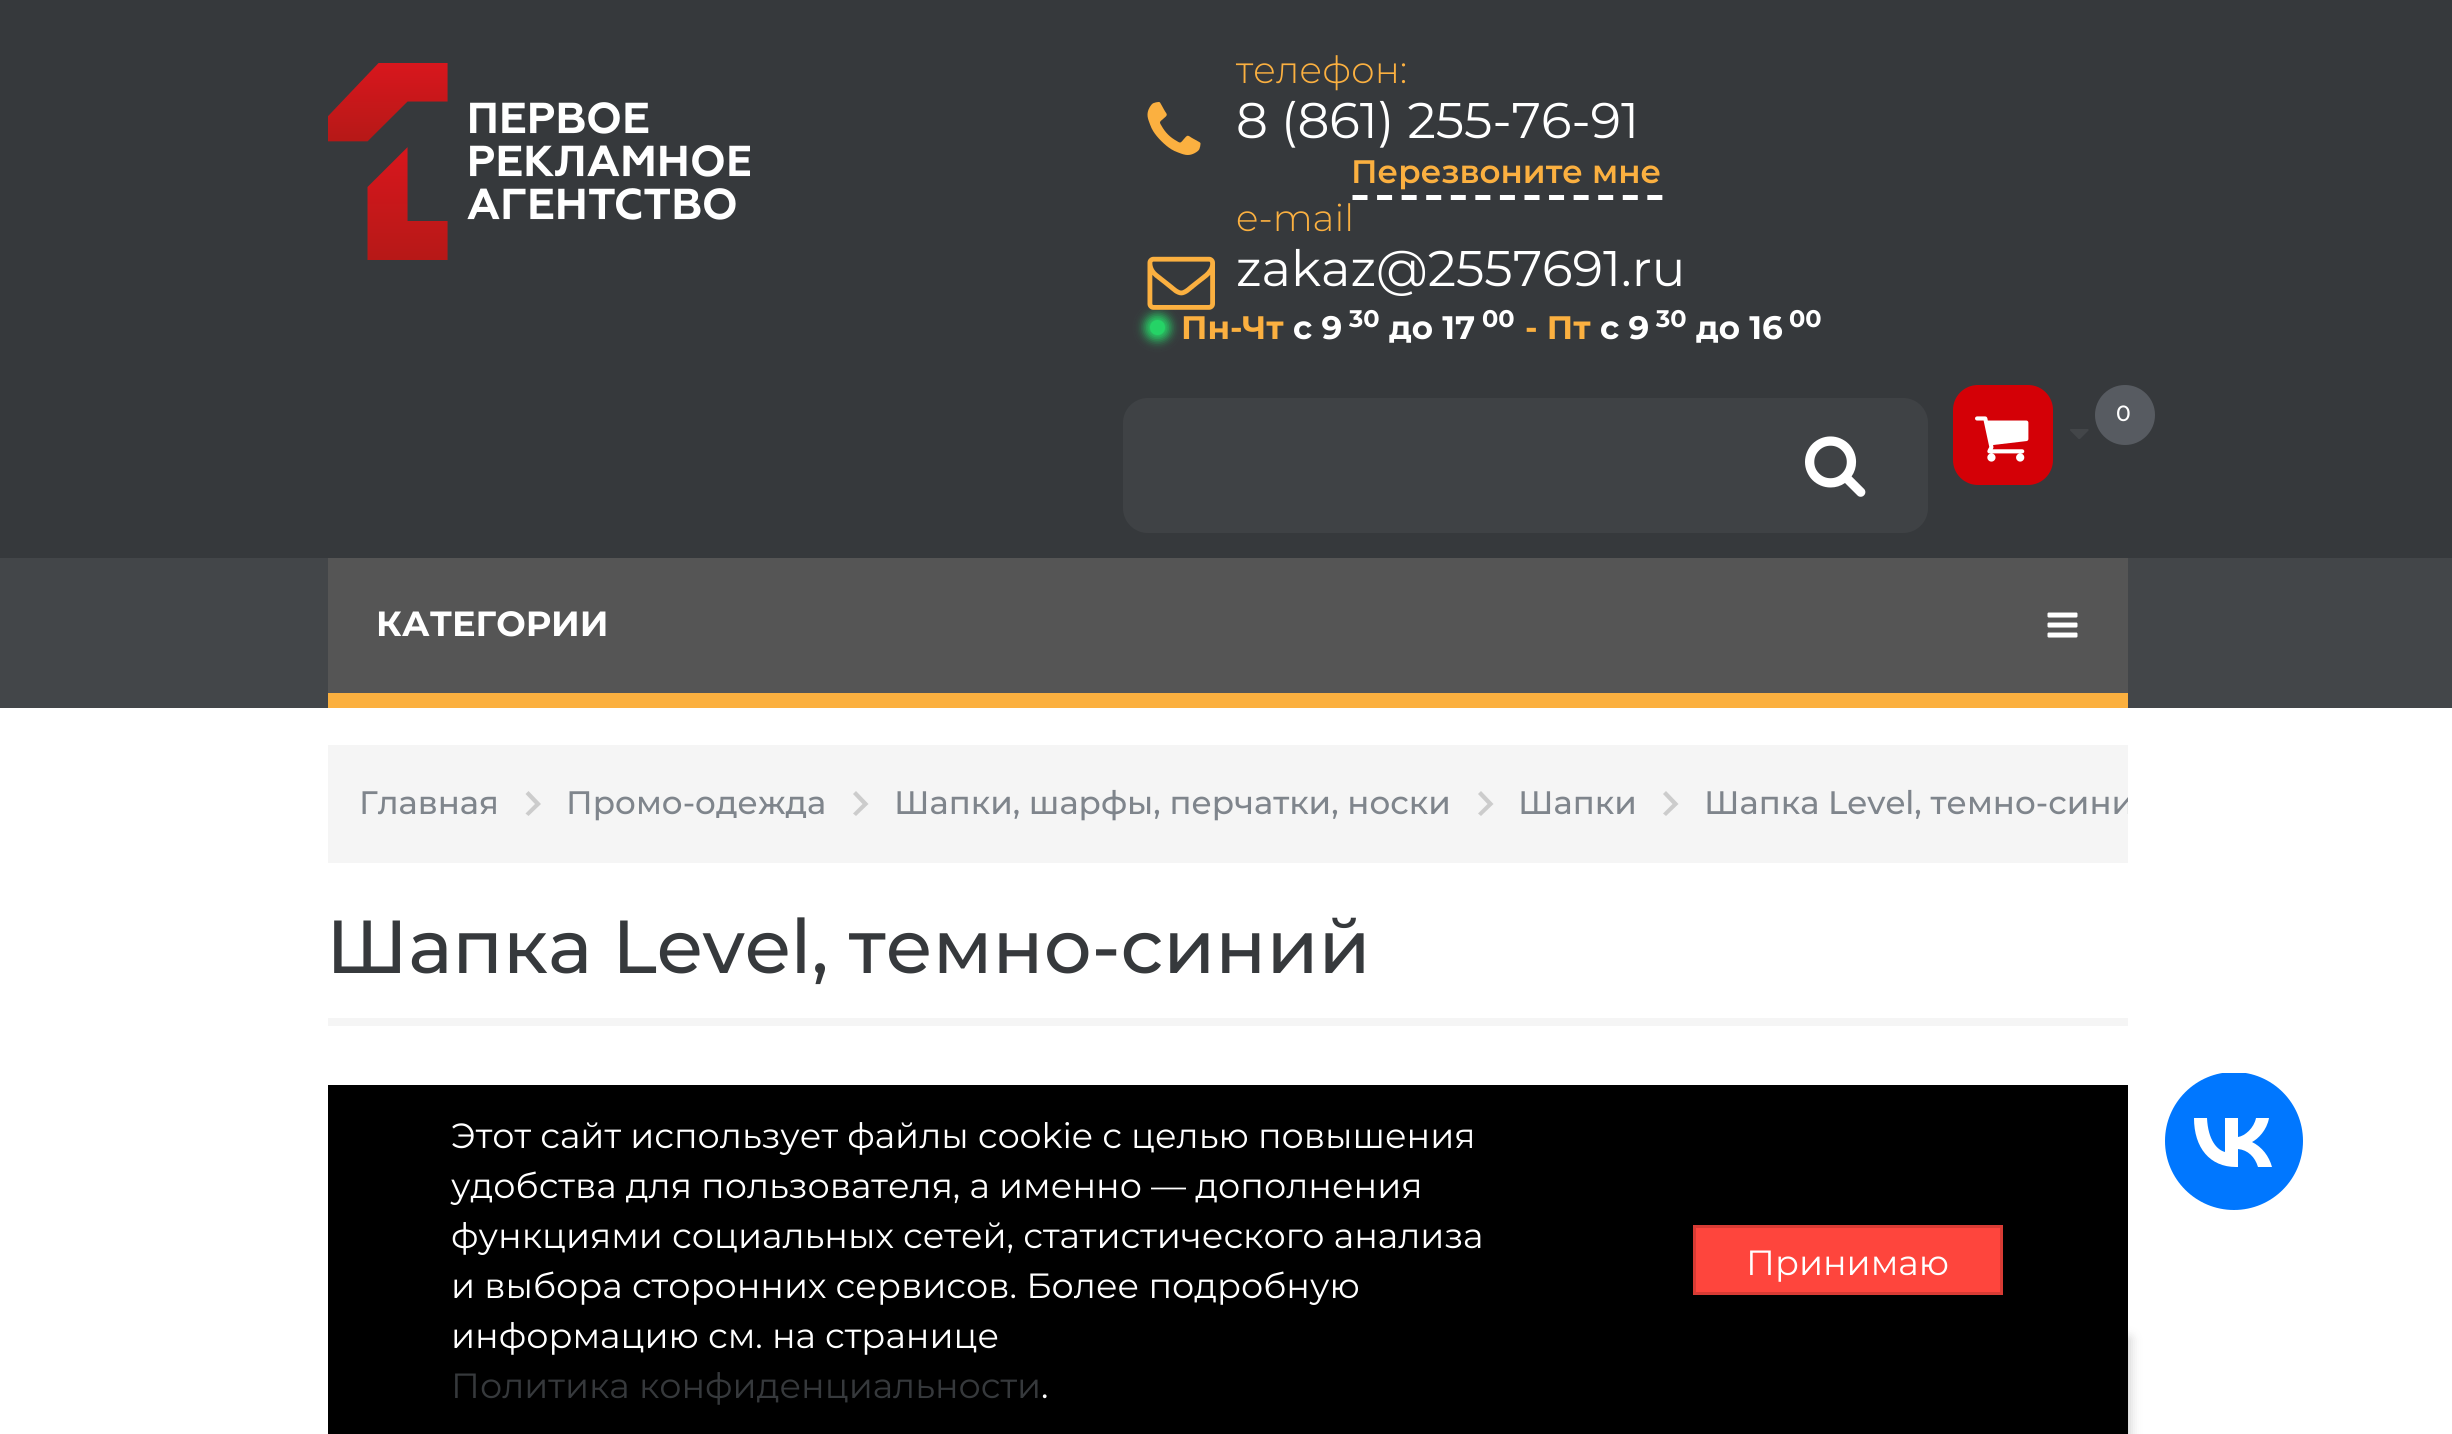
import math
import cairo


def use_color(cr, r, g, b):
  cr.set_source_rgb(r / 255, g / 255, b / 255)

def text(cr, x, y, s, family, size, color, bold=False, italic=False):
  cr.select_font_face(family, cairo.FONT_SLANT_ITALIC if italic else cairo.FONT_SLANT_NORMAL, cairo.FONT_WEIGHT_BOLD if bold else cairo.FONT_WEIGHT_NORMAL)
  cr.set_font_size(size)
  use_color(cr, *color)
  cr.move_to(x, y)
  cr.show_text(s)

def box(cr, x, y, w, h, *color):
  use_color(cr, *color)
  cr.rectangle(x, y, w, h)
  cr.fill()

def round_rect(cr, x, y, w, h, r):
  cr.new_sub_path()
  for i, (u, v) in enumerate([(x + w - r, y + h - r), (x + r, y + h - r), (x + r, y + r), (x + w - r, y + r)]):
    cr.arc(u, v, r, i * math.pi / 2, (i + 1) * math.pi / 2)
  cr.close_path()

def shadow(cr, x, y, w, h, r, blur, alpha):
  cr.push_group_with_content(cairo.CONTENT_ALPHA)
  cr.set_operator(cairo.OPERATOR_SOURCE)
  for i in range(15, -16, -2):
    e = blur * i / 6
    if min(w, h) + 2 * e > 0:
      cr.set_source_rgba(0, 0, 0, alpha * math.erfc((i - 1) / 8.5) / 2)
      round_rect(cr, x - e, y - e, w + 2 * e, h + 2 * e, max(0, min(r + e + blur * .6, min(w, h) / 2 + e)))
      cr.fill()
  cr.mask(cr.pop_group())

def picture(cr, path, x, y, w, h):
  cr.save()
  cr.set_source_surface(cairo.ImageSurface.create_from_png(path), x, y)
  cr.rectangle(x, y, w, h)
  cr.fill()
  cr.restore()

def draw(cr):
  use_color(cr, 255, 255, 255)
  cr.paint()
  box(cr, 0, 0, 2452, 558, 54, 57, 60)
  picture(cr, "img_01.png", 328, 63, 422, 197)
  picture(cr, "img_02.png", 1147, 102, 54, 53)
  cr.new_path()
  cr.move_to(1352.5, 197.5)
  cr.line_to(1662.5, 197.5)
  use_color(cr, 255, 255, 255)
  cr.set_line_width(5)
  cr.set_dash([15, 9.57])
  cr.stroke()
  use_color(cr, 37, 211, 102)
  shadow(cr, 1145, 315, 25, 25, 12.5, 5, 1)
  picture(cr, "img_03.png", 1147, 256, 68, 54)
  use_color(cr, 37, 211, 102)
  cr.arc(1157.5, 327.5, 7.5, 0, 2 * math.pi)
  cr.fill()
  use_color(cr, 63, 66, 69)
  round_rect(cr, 1123, 398, 805, 135, 25)
  cr.fill()
  picture(cr, "img_04.png", 1805, 436, 61, 61)
  use_color(cr, 212, 0, 6)
  round_rect(cr, 1953, 385, 100, 100, 25)
  cr.fill()
  picture(cr, "img_05.png", 1975, 416, 54, 46)
  use_color(cr, 87, 91, 97)
  cr.arc(2125, 415, 30, 0, 2 * math.pi)
  cr.fill()
  picture(cr, "img_06.png", 2070, 429, 19, 10)
  box(cr, 0, 558, 2452, 150, 67, 70, 73)
  box(cr, 328, 558, 1800, 135, 85, 85, 85)
  box(cr, 328, 693, 1800, 15, 251, 176, 63)
  picture(cr, "img_07.png", 2047, 612, 31, 26)
  box(cr, 328, 745, 1800, 118, 245, 245, 245)
  use_color(cr, 204, 204, 204)
  cr.new_path()
  cr.move_to(528.5, 791)
  cr.line_to(525.5, 794)
  cr.line_to(535, 804)
  cr.line_to(525.5, 813.5)
  cr.line_to(528.5, 816)
  cr.line_to(541, 804)
  cr.close_path()
  cr.fill()
  cr.new_path()
  cr.move_to(856, 791)
  cr.line_to(853, 794)
  cr.line_to(862.5, 804)
  cr.line_to(853, 813.5)
  cr.line_to(856, 816)
  cr.line_to(868.5, 804)
  cr.close_path()
  cr.fill()
  cr.new_path()
  cr.move_to(1481, 791)
  cr.line_to(1478, 794)
  cr.line_to(1487.5, 804)
  cr.line_to(1478, 813.5)
  cr.line_to(1481, 816)
  cr.line_to(1493.5, 804)
  cr.close_path()
  cr.fill()
  cr.new_path()
  cr.move_to(1666, 791)
  cr.line_to(1663, 794)
  cr.line_to(1672.5, 804)
  cr.line_to(1663, 813.5)
  cr.line_to(1666, 816)
  cr.line_to(1678.5, 804)
  cr.close_path()
  cr.fill()
  box(cr, 328, 1018, 1800, 8, 245, 245, 245)
  picture(cr, "img_08.png", 328, 1075, 702, 10)
  use_color(cr, 0, 0, 0)
  shadow(cr, 1110, 1338, 1020, 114, 0, 6, 0.2)
  box(cr, 328, 1085, 1800, 349, 0, 0, 0)
  use_color(cr, 254, 69, 61)
  cr.rectangle(1694.5, 1226.5, 307, 67)
  cr.fill_preserve()
  use_color(cr, 216, 59, 52)
  cr.set_line_width(3)
  cr.set_dash([])
  cr.stroke()
  cr.save()
  cr.rectangle(2165, 1073, 138, 137)
  cr.clip()
  use_color(cr, 0, 119, 255)
  cr.arc(2234, 1141, 69, 0, 2 * math.pi)
  cr.fill()
  cr.restore()
  use_color(cr, 255, 255, 255)
  cr.new_path()
  cr.move_to(2236, 1167)
  cr.curve_to(2210, 1167, 2194, 1148, 2194, 1118)
  cr.line_to(2207, 1118)
  cr.curve_to(2208, 1140, 2217, 1150, 2225, 1152)
  cr.line_to(2225, 1118)
  cr.line_to(2238, 1118)
  cr.line_to(2238, 1137)
  cr.curve_to(2245, 1136, 2254, 1128, 2256, 1118)
  cr.line_to(2269, 1118)
  cr.curve_to(2267, 1130, 2258, 1139, 2252, 1142)
  cr.curve_to(2262, 1147, 2269, 1156, 2272, 1167)
  cr.line_to(2258, 1167)
  cr.curve_to(2255, 1157, 2248, 1150, 2238, 1149)
  cr.line_to(2238, 1167)
  cr.close_path()
  cr.fill()
  text(cr, 1236, 83, "телефон:", "Montserrat Light", 37.5, (251, 176, 64))
  text(cr, 1236, 138, "8 (861) 255-76-91", "Montserrat", 50, (255, 255, 255))
  text(cr, 1351, 183, "Перезвоните мне", "Montserrat SemiBold", 32.5, (251, 176, 64))
  text(cr, 1236, 231, "e-mail", "Montserrat Light", 37.5, (251, 176, 64))
  text(cr, 1236, 286, "zakaz@2557691.ru", "Montserrat", 50, (255, 255, 255))
  text(cr, 1181, 339, "Пн-Чт", "Montserrat", 32.5, (251, 176, 64), bold=True)
  text(cr, 1293, 339, "c 9", "Montserrat", 32.5, (255, 255, 255), bold=True)
  text(cr, 1349, 327, "30", "Montserrat", 24, (255, 255, 255), bold=True)
  text(cr, 1389, 339, "до 17", "Montserrat", 32.5, (255, 255, 255), bold=True)
  text(cr, 1482, 327, "00", "Montserrat", 24, (255, 255, 255), bold=True)
  text(cr, 1525, 339, "- Пт", "Montserrat", 32.5, (251, 176, 64), bold=True)
  text(cr, 1600, 339, "c 9", "Montserrat", 32.5, (255, 255, 255), bold=True)
  text(cr, 1656, 327, "30", "Montserrat", 24, (255, 255, 255), bold=True)
  text(cr, 1696, 339, "до 16", "Montserrat", 32.5, (255, 255, 255), bold=True)
  text(cr, 1789, 327, "00", "Montserrat", 24, (255, 255, 255), bold=True)
  text(cr, 2116, 421, "0", "Montserrat Medium", 22, (255, 255, 255))
  text(cr, 376, 636, "КАТЕГОРИИ", "Montserrat", 35, (255, 255, 255), bold=True)
  text(cr, 359, 814, "Главная", "Montserrat Medium", 32.5, (127, 133, 140))
  text(cr, 566, 814, "Промо-одежда", "Montserrat Medium", 32.5, (127, 133, 140))
  text(cr, 894, 814, "Шапки, шарфы, перчатки, носки", "Montserrat Medium", 32.5, (127, 133, 140))
  text(cr, 1518, 814, "Шапки", "Montserrat Medium", 32.5, (127, 133, 140))
  cr.save()
  cr.rectangle(328, 745, 1800, 118)
  cr.clip()
  text(cr, 1704, 814, "Шапка Level, темно-сини", "Montserrat Medium", 32.5, (127, 133, 140))
  cr.restore()
  text(cr, 326, 973, "Шапка Level, темно-синий", "Montserrat Medium", 75, (54, 57, 60))
  text(cr, 451, 1148, "Этот сайт использует файлы cookie с целью повышения", "Montserrat", 35, (255, 255, 255))
  text(cr, 451, 1198, "удобства для пользователя, а именно — дополнения", "Montserrat", 35, (255, 255, 255))
  text(cr, 451, 1248, "функциями социальных сетей, статистического анализа", "Montserrat", 35, (255, 255, 255))
  text(cr, 451, 1298, "и выбора сторонних сервисов. Более подробную", "Montserrat", 35, (255, 255, 255))
  text(cr, 451, 1348, "информацию см. на странице", "Montserrat", 35, (255, 255, 255))
  text(cr, 451, 1398, "Политика конфиденциальности", "Montserrat", 35, (54, 57, 60))
  text(cr, 1041, 1398, ".", "Montserrat", 35, (255, 255, 255))
  text(cr, 1746, 1275, "Принимаю", "Montserrat", 35, (255, 255, 255))


surface = cairo.ImageSurface(cairo.FORMAT_RGB24, 2452, 1434)
cr = cairo.Context(surface)
options = cairo.FontOptions()
options.set_hint_metrics(cairo.HINT_METRICS_OFF)
options.set_hint_style(cairo.HINT_STYLE_NONE)
cr.set_font_options(options)
cr.set_miter_limit(4)
draw(cr)
surface.write_to_png("out.png")
